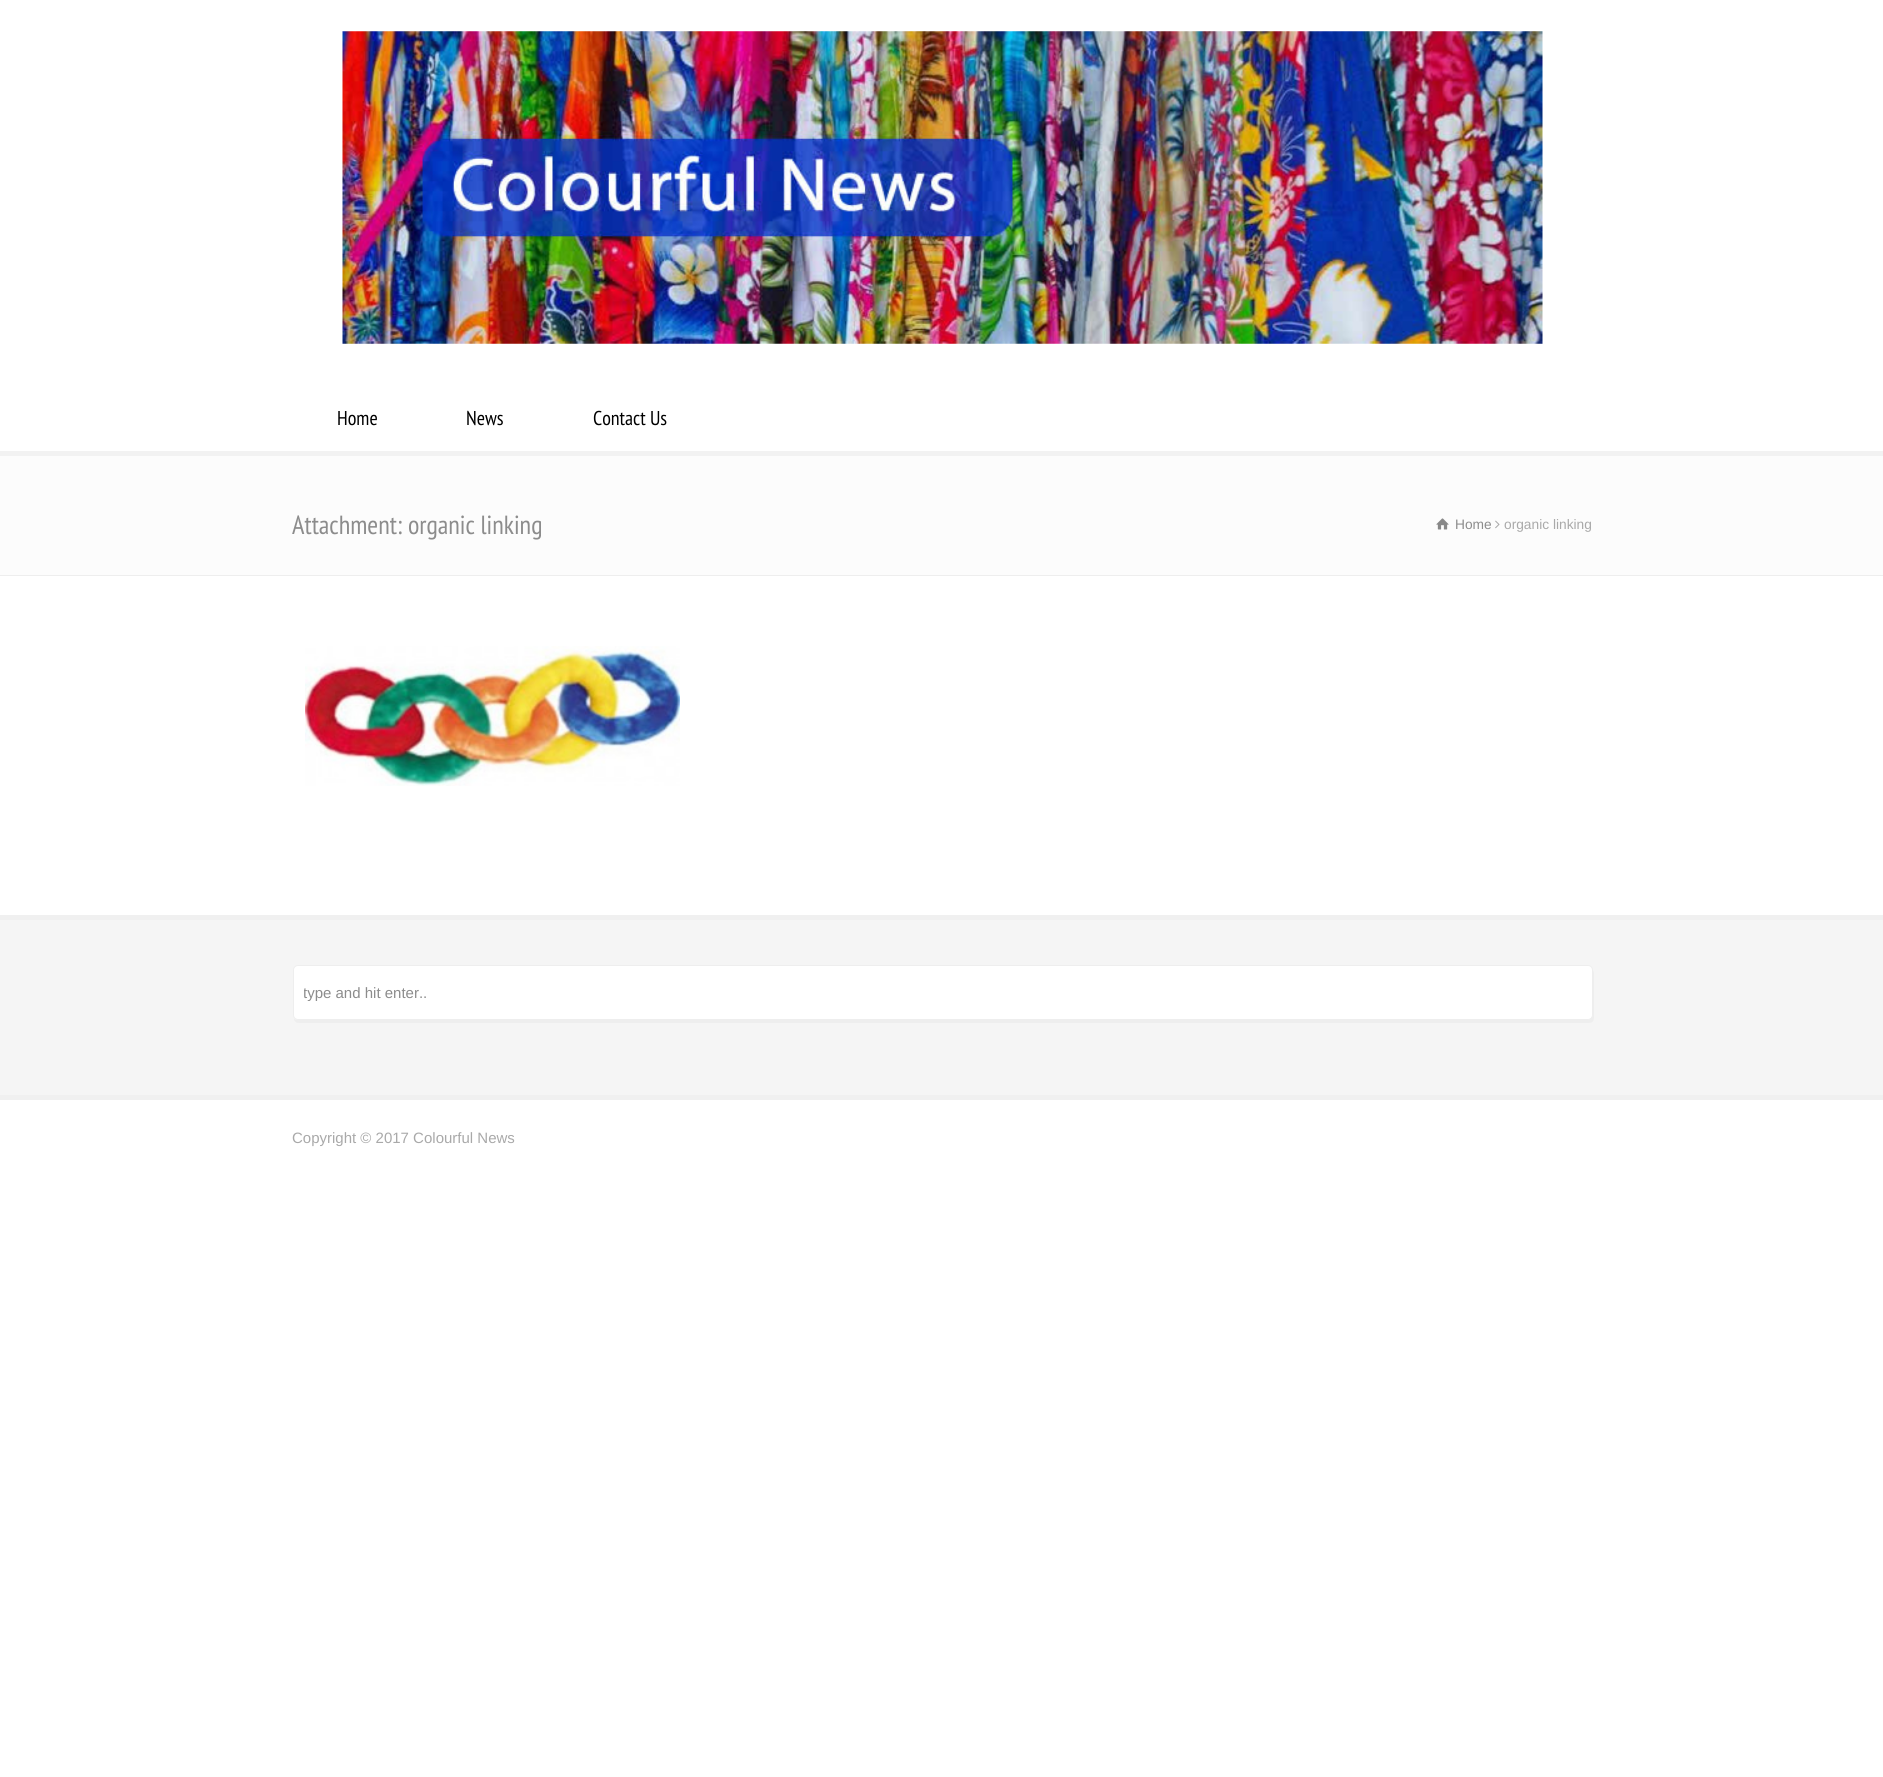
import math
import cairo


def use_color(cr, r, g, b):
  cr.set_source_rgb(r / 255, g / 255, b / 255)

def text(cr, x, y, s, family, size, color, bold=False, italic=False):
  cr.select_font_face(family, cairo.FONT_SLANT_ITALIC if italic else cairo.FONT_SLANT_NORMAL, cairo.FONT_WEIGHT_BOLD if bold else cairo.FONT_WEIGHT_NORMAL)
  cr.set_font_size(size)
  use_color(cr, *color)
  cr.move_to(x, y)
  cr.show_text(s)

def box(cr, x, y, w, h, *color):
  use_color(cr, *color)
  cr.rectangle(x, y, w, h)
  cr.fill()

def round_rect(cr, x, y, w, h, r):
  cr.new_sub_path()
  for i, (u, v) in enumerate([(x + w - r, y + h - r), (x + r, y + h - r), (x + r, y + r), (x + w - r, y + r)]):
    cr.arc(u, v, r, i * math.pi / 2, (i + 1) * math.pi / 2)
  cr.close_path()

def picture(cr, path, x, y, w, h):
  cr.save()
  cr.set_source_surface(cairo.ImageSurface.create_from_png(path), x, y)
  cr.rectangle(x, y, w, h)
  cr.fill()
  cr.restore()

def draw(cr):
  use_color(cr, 255, 255, 255)
  cr.paint()
  picture(cr, "img_01.png", 342, 31, 1201, 313)
  use_color(cr, 242, 242, 242)
  cr.new_path()
  cr.move_to(0, 451)
  cr.line_to(0, 456)
  cr.line_to(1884, 456)
  cr.line_to(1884, 390)
  cr.line_to(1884, 451)
  cr.close_path()
  cr.fill()
  box(cr, 0, 456, 1883, 119, 252, 252, 252)
  box(cr, 0, 575, 1883, 1, 238, 238, 238)
  picture(cr, "img_02.png", 1436, 518, 13, 12)
  picture(cr, "img_03.png", 1495, 520, 5, 9)
  picture(cr, "img_04.png", 305, 646, 375, 140)
  box(cr, 0, 920, 1883, 175, 245, 245, 245)
  box(cr, 0, 915, 1883, 5, 240, 240, 240)
  use_color(cr, 238, 238, 238)
  cr.new_path()
  cr.move_to(294, 1019)
  cr.curve_to(294, 1021, 296, 1023, 299, 1023)
  cr.line_to(1589, 1023)
  cr.curve_to(1592, 1023, 1594, 1021, 1594, 1018)
  cr.line_to(1594, 973)
  cr.curve_to(1594, 972, 1593, 970, 1592, 969)
  cr.line_to(1592, 1015)
  cr.curve_to(1592, 1018, 1590, 1020, 1588, 1020)
  cr.line_to(298, 1020)
  cr.curve_to(296, 1020, 295, 1019, 294, 1019)
  cr.close_path()
  cr.fill()
  use_color(cr, 255, 255, 255)
  round_rect(cr, 293.5, 965.5, 1299, 54, 4.5)
  cr.fill_preserve()
  use_color(cr, 238, 238, 238)
  cr.set_line_width(1)
  cr.stroke()
  box(cr, 0, 1095, 1883, 5, 240, 240, 240)
  text(cr, 337, 425, "Home", "PT Sans Narrow", 20, (0, 0, 0))
  text(cr, 466, 425, "News", "PT Sans Narrow", 20, (0, 0, 0))
  text(cr, 593, 425, "Contact Us", "PT Sans Narrow", 20, (0, 0, 0))
  text(cr, 292, 534, "Attachment: organic linking", "PT Sans Narrow", 26.25, (140, 140, 140))
  text(cr, 1455, 529, "Home", "Liberation Sans", 13.75, (140, 140, 140))
  text(cr, 1504, 529, "organic linking", "Liberation Sans", 13.75, (169, 169, 169))
  cr.save()
  cr.rectangle(304, 984, 1277, 17)
  cr.clip()
  text(cr, 303, 998, "type and hit enter..", "Liberation Sans", 15, (140, 140, 140))
  cr.restore()
  text(cr, 292, 1143, "Copyright © 2017 Colourful News", "Liberation Sans", 15, (169, 169, 169))


surface = cairo.ImageSurface(cairo.FORMAT_RGB24, 1883, 1777)
cr = cairo.Context(surface)
options = cairo.FontOptions()
options.set_hint_metrics(cairo.HINT_METRICS_OFF)
options.set_hint_style(cairo.HINT_STYLE_NONE)
cr.set_font_options(options)
cr.set_miter_limit(4)
draw(cr)
surface.write_to_png("out.png")
